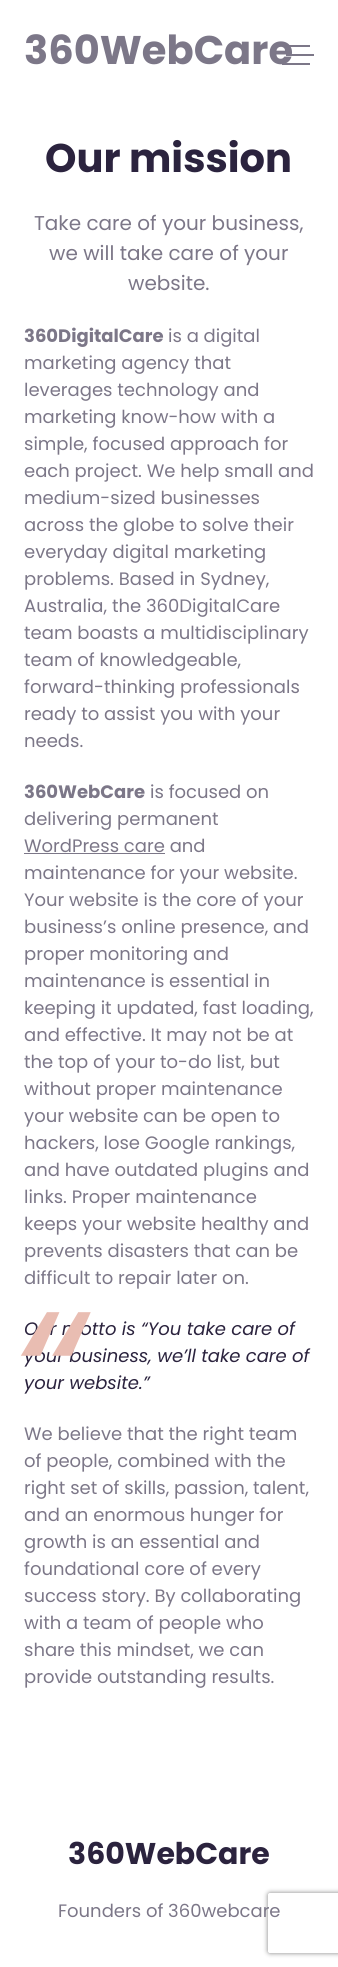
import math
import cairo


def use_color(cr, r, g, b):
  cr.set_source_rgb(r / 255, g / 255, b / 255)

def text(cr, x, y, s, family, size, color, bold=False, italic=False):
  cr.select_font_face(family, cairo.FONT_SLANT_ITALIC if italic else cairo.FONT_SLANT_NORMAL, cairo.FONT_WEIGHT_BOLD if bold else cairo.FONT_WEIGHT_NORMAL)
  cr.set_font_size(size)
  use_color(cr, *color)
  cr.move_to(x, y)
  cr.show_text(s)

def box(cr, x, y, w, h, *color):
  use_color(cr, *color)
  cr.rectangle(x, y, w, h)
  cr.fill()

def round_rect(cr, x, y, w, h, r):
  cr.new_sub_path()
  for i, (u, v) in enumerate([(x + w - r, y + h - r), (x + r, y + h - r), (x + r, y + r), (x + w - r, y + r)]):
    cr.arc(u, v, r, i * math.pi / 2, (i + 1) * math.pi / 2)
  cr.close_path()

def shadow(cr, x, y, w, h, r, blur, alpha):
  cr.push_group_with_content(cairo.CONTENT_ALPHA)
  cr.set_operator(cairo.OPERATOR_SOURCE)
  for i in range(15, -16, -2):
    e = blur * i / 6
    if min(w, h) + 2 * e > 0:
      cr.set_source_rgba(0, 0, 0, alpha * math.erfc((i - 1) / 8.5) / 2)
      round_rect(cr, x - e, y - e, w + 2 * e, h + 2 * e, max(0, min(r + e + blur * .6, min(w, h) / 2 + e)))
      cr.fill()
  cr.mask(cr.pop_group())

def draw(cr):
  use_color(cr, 255, 255, 255)
  cr.paint()
  box(cr, 286, 54, 28, 2, 124, 119, 136)
  box(cr, 282, 45, 28, 2, 124, 119, 136)
  box(cr, 282, 63, 28, 2, 124, 119, 136)
  box(cr, 24, 853, 141, 1, 124, 119, 136)
  cr.save()
  cr.set_fill_rule(cairo.FILL_RULE_EVEN_ODD)
  cr.new_path()
  cr.move_to(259, 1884)
  cr.line_to(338, 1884)
  cr.line_to(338, 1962)
  cr.line_to(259, 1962)
  cr.close_path()
  cr.move_to(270, 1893)
  cr.line_to(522, 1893)
  cr.curve_to(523, 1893, 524, 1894, 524, 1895)
  cr.line_to(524, 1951)
  cr.curve_to(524, 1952, 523, 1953, 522, 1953)
  cr.line_to(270, 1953)
  cr.curve_to(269, 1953, 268, 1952, 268, 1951)
  cr.line_to(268, 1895)
  cr.curve_to(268, 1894, 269, 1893, 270, 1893)
  cr.close_path()
  cr.clip()
  use_color(cr, 128, 128, 128)
  shadow(cr, 268, 1893, 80, 60, 2, 2.5, 1)
  cr.restore()
  text(cr, 24, 64, "360WebCare", "Poppins", 40, (124, 119, 136), bold=True)
  text(cr, 45, 172, "Our mission", "Poppins", 40, (43, 35, 62), bold=True)
  text(cr, 34, 230, "Take care of your business,", "Poppins", 20, (124, 119, 136))
  text(cr, 49, 260, "we will take care of your", "Poppins", 20, (124, 119, 136))
  text(cr, 128, 290, "website.", "Poppins", 20, (124, 119, 136))
  text(cr, 24, 342, "360DigitalCare", "Poppins", 18, (124, 119, 136), bold=True)
  text(cr, 168, 342, "is a digital", "Poppins", 18, (124, 119, 136))
  text(cr, 24, 369, "marketing agency that", "Poppins", 18, (124, 119, 136))
  text(cr, 24, 396, "leverages technology and", "Poppins", 18, (124, 119, 136))
  text(cr, 24, 423, "marketing know-how with a", "Poppins", 18, (124, 119, 136))
  text(cr, 24, 450, "simple, focused approach for", "Poppins", 18, (124, 119, 136))
  text(cr, 24, 477, "each project. We help small and", "Poppins", 18, (124, 119, 136))
  text(cr, 24, 504, "medium-sized businesses", "Poppins", 18, (124, 119, 136))
  text(cr, 24, 531, "across the globe to solve their", "Poppins", 18, (124, 119, 136))
  text(cr, 24, 558, "everyday digital marketing", "Poppins", 18, (124, 119, 136))
  text(cr, 24, 585, "problems. Based in Sydney,", "Poppins", 18, (124, 119, 136))
  text(cr, 24, 612, "Australia, the 360DigitalCare", "Poppins", 18, (124, 119, 136))
  text(cr, 24, 639, "team boasts a multidisciplinary", "Poppins", 18, (124, 119, 136))
  text(cr, 24, 666, "team of knowledgeable,", "Poppins", 18, (124, 119, 136))
  text(cr, 24, 693, "forward-thinking professionals", "Poppins", 18, (124, 119, 136))
  text(cr, 24, 720, "ready to assist you with your", "Poppins", 18, (124, 119, 136))
  text(cr, 24, 747, "needs.", "Poppins", 18, (124, 119, 136))
  text(cr, 24, 798, "360WebCare", "Poppins", 18, (124, 119, 136), bold=True)
  text(cr, 150, 798, "is focused on", "Poppins", 18, (124, 119, 136))
  text(cr, 24, 825, "delivering permanent", "Poppins", 18, (124, 119, 136))
  text(cr, 24, 852, "WordPress care and", "Poppins", 18, (124, 119, 136))
  text(cr, 24, 879, "maintenance for your website.", "Poppins", 18, (124, 119, 136))
  text(cr, 24, 906, "Your website is the core of your", "Poppins", 18, (124, 119, 136))
  text(cr, 24, 933, "business’s online presence, and", "Poppins", 18, (124, 119, 136))
  text(cr, 24, 960, "proper monitoring and", "Poppins", 18, (124, 119, 136))
  text(cr, 24, 987, "maintenance is essential in", "Poppins", 18, (124, 119, 136))
  text(cr, 24, 1014, "keeping it updated, fast loading,", "Poppins", 18, (124, 119, 136))
  text(cr, 24, 1041, "and effective. It may not be at", "Poppins", 18, (124, 119, 136))
  text(cr, 24, 1068, "the top of your to-do list, but", "Poppins", 18, (124, 119, 136))
  text(cr, 24, 1095, "without proper maintenance", "Poppins", 18, (124, 119, 136))
  text(cr, 24, 1122, "your website can be open to", "Poppins", 18, (124, 119, 136))
  text(cr, 24, 1149, "hackers, lose Google rankings,", "Poppins", 18, (124, 119, 136))
  text(cr, 24, 1176, "and have outdated plugins and", "Poppins", 18, (124, 119, 136))
  text(cr, 24, 1203, "links. Proper maintenance", "Poppins", 18, (124, 119, 136))
  text(cr, 24, 1230, "keeps your website healthy and", "Poppins", 18, (124, 119, 136))
  text(cr, 24, 1257, "prevents disasters that can be", "Poppins", 18, (124, 119, 136))
  text(cr, 24, 1284, "difficult to repair later on.", "Poppins", 18, (124, 119, 136))
  text(cr, 24, 1335, "Our motto is “You take care of", "Poppins", 18, (43, 35, 62), italic=True)
  text(cr, 24, 1362, "your business, we’ll take care of", "Poppins", 18, (43, 35, 62), italic=True)
  text(cr, 12, 1446, "“", "Poppins", 192, (233, 189, 178), italic=True)
  text(cr, 24, 1389, "your website.”", "Poppins", 18, (43, 35, 62), italic=True)
  text(cr, 24, 1440, "We believe that the right team", "Poppins", 18, (124, 119, 136))
  text(cr, 24, 1467, "of people, combined with the", "Poppins", 18, (124, 119, 136))
  text(cr, 24, 1494, "right set of skills, passion, talent,", "Poppins", 18, (124, 119, 136))
  text(cr, 24, 1521, "and an enormous hunger for", "Poppins", 18, (124, 119, 136))
  text(cr, 24, 1548, "growth is an essential and", "Poppins", 18, (124, 119, 136))
  text(cr, 24, 1575, "foundational core of every", "Poppins", 18, (124, 119, 136))
  text(cr, 24, 1602, "success story. By collaborating", "Poppins", 18, (124, 119, 136))
  text(cr, 24, 1629, "with a team of people who", "Poppins", 18, (124, 119, 136))
  text(cr, 24, 1656, "share this mindset, we can", "Poppins", 18, (124, 119, 136))
  text(cr, 24, 1683, "provide outstanding results.", "Poppins", 18, (124, 119, 136))
  text(cr, 68, 1864, "360WebCare", "Poppins", 30, (43, 35, 62), bold=True)
  text(cr, 58, 1917, "Founders of 360webcare", "Poppins", 18, (124, 119, 136))


surface = cairo.ImageSurface(cairo.FORMAT_RGB24, 338, 1967)
cr = cairo.Context(surface)
options = cairo.FontOptions()
options.set_hint_metrics(cairo.HINT_METRICS_OFF)
options.set_hint_style(cairo.HINT_STYLE_NONE)
cr.set_font_options(options)
cr.set_miter_limit(4)
draw(cr)
surface.write_to_png("out.png")
